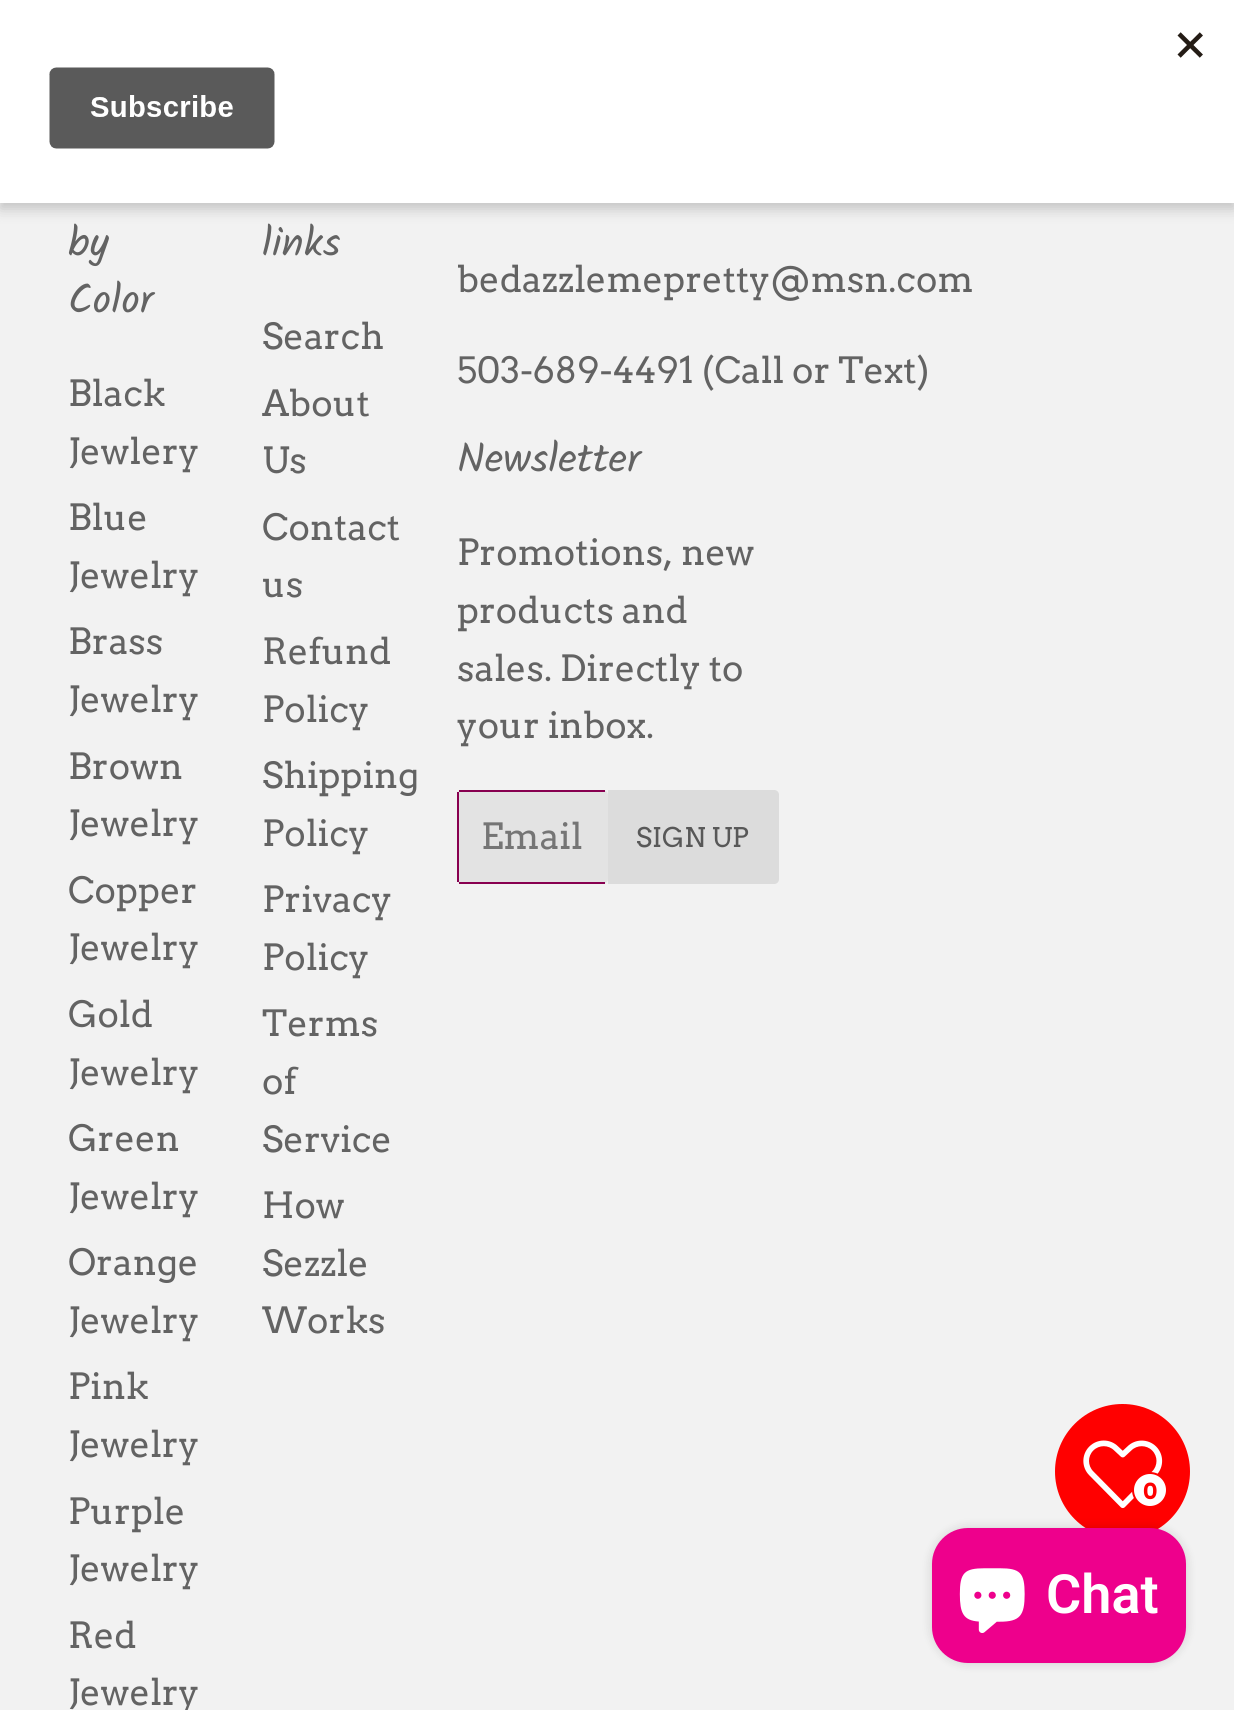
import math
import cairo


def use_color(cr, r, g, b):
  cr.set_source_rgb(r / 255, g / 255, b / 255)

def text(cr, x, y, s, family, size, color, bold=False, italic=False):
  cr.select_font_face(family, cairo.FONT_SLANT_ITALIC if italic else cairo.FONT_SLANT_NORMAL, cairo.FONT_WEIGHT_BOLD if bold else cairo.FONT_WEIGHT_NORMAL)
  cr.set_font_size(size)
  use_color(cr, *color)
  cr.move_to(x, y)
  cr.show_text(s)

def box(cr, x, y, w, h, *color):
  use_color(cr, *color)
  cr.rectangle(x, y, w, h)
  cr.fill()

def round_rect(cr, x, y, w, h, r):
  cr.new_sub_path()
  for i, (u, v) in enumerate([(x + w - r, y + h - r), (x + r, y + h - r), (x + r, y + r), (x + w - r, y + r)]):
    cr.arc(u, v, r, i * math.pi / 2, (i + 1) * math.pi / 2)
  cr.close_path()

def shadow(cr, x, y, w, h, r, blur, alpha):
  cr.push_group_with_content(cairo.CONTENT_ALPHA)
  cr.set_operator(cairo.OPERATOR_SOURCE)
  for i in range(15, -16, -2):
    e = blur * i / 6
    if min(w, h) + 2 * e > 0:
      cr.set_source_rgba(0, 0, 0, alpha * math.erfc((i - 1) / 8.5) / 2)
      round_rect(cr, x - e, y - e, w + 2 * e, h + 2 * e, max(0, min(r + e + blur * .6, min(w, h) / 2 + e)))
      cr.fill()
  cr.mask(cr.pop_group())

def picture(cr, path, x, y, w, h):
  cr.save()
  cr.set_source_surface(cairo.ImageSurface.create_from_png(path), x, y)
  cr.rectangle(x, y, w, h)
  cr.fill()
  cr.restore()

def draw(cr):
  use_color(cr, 242, 242, 242)
  cr.paint()
  use_color(cr, 0, 0, 0)
  shadow(cr, 0, 7, 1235, 202, 0, 7, 0.2)
  box(cr, 0, 0, 1234, 203, 255, 255, 255)
  picture(cr, "img_01.png", 49, 32, 1154, 117)
  use_color(cr, 227, 227, 227)
  round_rect(cr, 457, 790, 151, 94, 5)
  cr.fill()
  box(cr, 459, 790, 146, 2, 136, 0, 80)
  box(cr, 459, 882, 146, 2, 136, 0, 80)
  box(cr, 457, 792, 2, 90, 136, 0, 80)
  use_color(cr, 220, 220, 220)
  cr.new_path()
  cr.move_to(608, 790)
  cr.line_to(774, 790)
  cr.curve_to(777, 790, 779, 792, 779, 795)
  cr.line_to(779, 879)
  cr.curve_to(779, 882, 777, 884, 774, 884)
  cr.line_to(608, 884)
  cr.close_path()
  cr.fill()
  use_color(cr, 255, 0, 0)
  cr.arc(1122.5, 1471.5, 67.5, 0, 2 * math.pi)
  cr.fill()
  picture(cr, "img_02.png", 1083, 1440, 80, 69)
  use_color(cr, 255, 255, 255)
  cr.arc(1150, 1490, 17, 0, 2 * math.pi)
  cr.fill_preserve()
  use_color(cr, 255, 0, 0)
  cr.stroke()
  use_color(cr, 0, 0, 0)
  shadow(cr, 932, 1528, 254, 135, 36, 5.5, 0.15)
  use_color(cr, 238, 0, 140)
  round_rect(cr, 932, 1528, 254, 135, 36)
  cr.fill()
  picture(cr, "img_03.png", 959, 1568, 66, 65)
  text(cr, 68, 256, "by", "Kalam", 41, (99, 99, 99))
  text(cr, 68, 313, "Color", "Kalam", 41, (99, 99, 99))
  text(cr, 68, 406, "Black", "Arvo", 36, (99, 99, 99))
  text(cr, 68, 464, "Jewlery", "Arvo", 36, (99, 99, 99))
  text(cr, 68, 530, "Blue", "Arvo", 36, (99, 99, 99))
  text(cr, 68, 588, "Jewelry", "Arvo", 36, (99, 99, 99))
  text(cr, 68, 654, "Brass", "Arvo", 36, (99, 99, 99))
  text(cr, 68, 712, "Jewelry", "Arvo", 36, (99, 99, 99))
  text(cr, 68, 779, "Brown", "Arvo", 36, (99, 99, 99))
  text(cr, 68, 836, "Jewelry", "Arvo", 36, (99, 99, 99))
  text(cr, 68, 903, "Copper", "Arvo", 36, (99, 99, 99))
  text(cr, 68, 960, "Jewelry", "Arvo", 36, (99, 99, 99))
  text(cr, 68, 1027, "Gold", "Arvo", 36, (99, 99, 99))
  text(cr, 68, 1085, "Jewelry", "Arvo", 36, (99, 99, 99))
  text(cr, 68, 1151, "Green", "Arvo", 36, (99, 99, 99))
  text(cr, 68, 1209, "Jewelry", "Arvo", 36, (99, 99, 99))
  text(cr, 68, 1275, "Orange", "Arvo", 36, (99, 99, 99))
  text(cr, 68, 1333, "Jewelry", "Arvo", 36, (99, 99, 99))
  text(cr, 68, 1399, "Pink", "Arvo", 36, (99, 99, 99))
  text(cr, 68, 1457, "Jewelry", "Arvo", 36, (99, 99, 99))
  text(cr, 68, 1524, "Purple", "Arvo", 36, (99, 99, 99))
  text(cr, 68, 1581, "Jewelry", "Arvo", 36, (99, 99, 99))
  text(cr, 68, 1648, "Red", "Arvo", 36, (99, 99, 99))
  text(cr, 68, 1705, "Jewelry", "Arvo", 36, (99, 99, 99))
  text(cr, 262, 256, "links", "Kalam", 41, (99, 99, 99))
  text(cr, 262, 349, "Search", "Arvo", 36, (99, 99, 99))
  text(cr, 262, 416, "About", "Arvo", 36, (99, 99, 99))
  text(cr, 262, 473, "Us", "Arvo", 36, (99, 99, 99))
  text(cr, 262, 540, "Contact", "Arvo", 36, (99, 99, 99))
  text(cr, 262, 597, "us", "Arvo", 36, (99, 99, 99))
  text(cr, 262, 664, "Refund", "Arvo", 36, (99, 99, 99))
  text(cr, 262, 722, "Policy", "Arvo", 36, (99, 99, 99))
  text(cr, 262, 788, "Shipping", "Arvo", 36, (99, 99, 99))
  text(cr, 262, 846, "Policy", "Arvo", 36, (99, 99, 99))
  text(cr, 262, 912, "Privacy", "Arvo", 36, (99, 99, 99))
  text(cr, 262, 970, "Policy", "Arvo", 36, (99, 99, 99))
  text(cr, 262, 1036, "Terms", "Arvo", 36, (99, 99, 99))
  text(cr, 262, 1094, "of", "Arvo", 36, (99, 99, 99))
  text(cr, 262, 1152, "Service", "Arvo", 36, (99, 99, 99))
  text(cr, 262, 1218, "How", "Arvo", 36, (99, 99, 99))
  text(cr, 262, 1276, "Sezzle", "Arvo", 36, (99, 99, 99))
  text(cr, 262, 1333, "Works", "Arvo", 36, (99, 99, 99))
  text(cr, 457, 292, "bedazzlemepretty@msn.com", "Arvo", 36, (99, 99, 99))
  text(cr, 457, 383, "503-689-4491 (Call or Text)", "Arvo", 36, (99, 99, 99))
  text(cr, 457, 472, "Newsletter", "Kalam", 41, (99, 99, 99))
  text(cr, 457, 565, "Promotions, new", "Arvo", 36, (99, 99, 99))
  text(cr, 457, 623, "products and", "Arvo", 36, (99, 99, 99))
  text(cr, 457, 681, "sales. Directly to", "Arvo", 36, (99, 99, 99))
  text(cr, 457, 738, "your inbox.", "Arvo", 36, (99, 99, 99))
  text(cr, 481, 849, "Email", "Arvo", 36, (117, 117, 117))
  text(cr, 636, 847, "SIGN UP", "Arvo", 27, (88, 88, 88))
  text(cr, 1143, 1499, "0", "Arvo", 22, (255, 0, 0), bold=True)
  text(cr, 1046, 1613, "Chat", "Roboto SemiBold", 54, (255, 255, 255))


surface = cairo.ImageSurface(cairo.FORMAT_RGB24, 1234, 1710)
cr = cairo.Context(surface)
options = cairo.FontOptions()
options.set_hint_metrics(cairo.HINT_METRICS_OFF)
options.set_hint_style(cairo.HINT_STYLE_NONE)
cr.set_font_options(options)
cr.set_miter_limit(4)
draw(cr)
surface.write_to_png("out.png")
